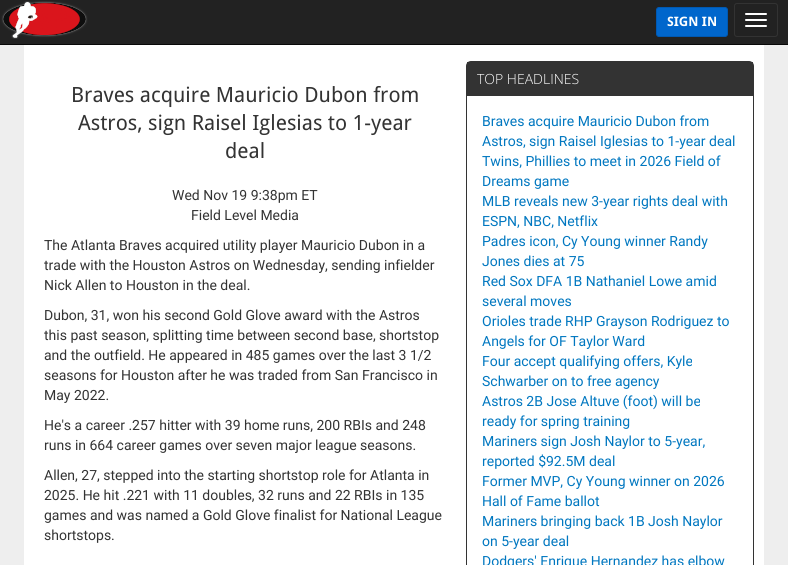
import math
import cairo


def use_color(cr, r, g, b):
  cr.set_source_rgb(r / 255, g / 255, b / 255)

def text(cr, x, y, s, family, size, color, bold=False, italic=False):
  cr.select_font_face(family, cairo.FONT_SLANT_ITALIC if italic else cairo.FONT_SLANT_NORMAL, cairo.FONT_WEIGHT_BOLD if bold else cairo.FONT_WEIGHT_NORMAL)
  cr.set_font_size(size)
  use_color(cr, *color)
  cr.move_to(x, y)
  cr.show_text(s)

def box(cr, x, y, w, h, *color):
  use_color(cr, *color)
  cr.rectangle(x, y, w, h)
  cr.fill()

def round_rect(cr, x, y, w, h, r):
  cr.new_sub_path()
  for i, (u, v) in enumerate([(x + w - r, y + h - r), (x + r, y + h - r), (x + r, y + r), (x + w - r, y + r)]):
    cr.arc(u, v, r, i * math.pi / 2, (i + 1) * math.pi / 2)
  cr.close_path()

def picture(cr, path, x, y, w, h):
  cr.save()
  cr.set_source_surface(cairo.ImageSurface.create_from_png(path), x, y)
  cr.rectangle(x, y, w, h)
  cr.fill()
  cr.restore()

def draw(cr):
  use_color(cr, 238, 238, 238)
  cr.paint()
  box(cr, 0, 0, 788, 44, 34, 34, 34)
  box(cr, 0, 44, 788, 1, 8, 8, 8)
  picture(cr, "img_01.png", 1, 1, 87, 38)
  use_color(cr, 0, 102, 204)
  round_rect(cr, 656.5, 7.5, 71, 29, 2.5)
  cr.fill_preserve()
  use_color(cr, 0, 89, 179)
  cr.set_line_width(1)
  cr.stroke()
  round_rect(cr, 734.5, 3.5, 43, 33, 2.5)
  use_color(cr, 51, 51, 51)
  cr.stroke()
  use_color(cr, 255, 255, 255)
  round_rect(cr, 745, 13, 22, 2, 1)
  cr.fill()
  round_rect(cr, 745, 19, 22, 2, 1)
  cr.fill()
  round_rect(cr, 745, 25, 22, 2, 1)
  cr.fill()
  box(cr, 24, 45, 740, 520, 255, 255, 255)
  round_rect(cr, 466.5, 61.5, 287, 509, 4.5)
  use_color(cr, 51, 51, 51)
  cr.stroke()
  box(cr, 467, 62, 286, 34, 51, 51, 51)
  text(cr, 667, 26, "SIGN IN", "Droid Sans", 13, (255, 255, 255), bold=True)
  text(cr, 71, 102, "Braves acquire Mauricio Dubon from", "Droid Sans", 21, (51, 51, 51))
  text(cr, 78, 130, "Astros, sign Raisel Iglesias to 1-year", "Droid Sans", 21, (51, 51, 51))
  text(cr, 225, 158, "deal", "Droid Sans", 21, (51, 51, 51))
  text(cr, 172, 200, "Wed Nov 19 9:38pm ET", "Roboto", 14, (51, 51, 51))
  text(cr, 191, 220, "Field Level Media", "Roboto", 14, (51, 51, 51))
  text(cr, 44, 250, "The Atlanta Braves acquired utility player Mauricio Dubon in a", "Roboto", 14, (51, 51, 51))
  text(cr, 44, 270, "trade with the Houston Astros on Wednesday, sending infielder", "Roboto", 14, (51, 51, 51))
  text(cr, 44, 290, "Nick Allen to Houston in the deal.", "Roboto", 14, (51, 51, 51))
  text(cr, 44, 320, "Dubon, 31, won his second Gold Glove award with the Astros", "Roboto", 14, (51, 51, 51))
  text(cr, 44, 340, "this past season, splitting time between second base, shortstop", "Roboto", 14, (51, 51, 51))
  text(cr, 44, 360, "and the outfield. He appeared in 485 games over the last 3 1/2", "Roboto", 14, (51, 51, 51))
  text(cr, 44, 380, "seasons for Houston after he was traded from San Francisco in", "Roboto", 14, (51, 51, 51))
  text(cr, 44, 400, "May 2022.", "Roboto", 14, (51, 51, 51))
  text(cr, 44, 430, "He's a career .257 hitter with 39 home runs, 200 RBIs and 248", "Roboto", 14, (51, 51, 51))
  text(cr, 44, 450, "runs in 664 career games over seven major league seasons.", "Roboto", 14, (51, 51, 51))
  text(cr, 44, 480, "Allen, 27, stepped into the starting shortstop role for Atlanta in", "Roboto", 14, (51, 51, 51))
  text(cr, 44, 500, "2025. He hit .221 with 11 doubles, 32 runs and 22 RBIs in 135", "Roboto", 14, (51, 51, 51))
  text(cr, 44, 520, "games and was named a Gold Glove finalist for National League", "Roboto", 14, (51, 51, 51))
  text(cr, 44, 540, "shortstops.", "Roboto", 14, (51, 51, 51))
  text(cr, 477, 84, "TOP HEADLINES", "Open Sans Light", 14, (255, 255, 255))
  text(cr, 482, 126, "Braves acquire Mauricio Dubon from", "Roboto", 14, (0, 119, 192))
  text(cr, 482, 146, "Astros, sign Raisel Iglesias to 1-year deal", "Roboto", 14, (0, 119, 192))
  text(cr, 482, 166, "Twins, Phillies to meet in 2026 Field of", "Roboto", 14, (0, 119, 192))
  text(cr, 482, 186, "Dreams game", "Roboto", 14, (0, 119, 192))
  text(cr, 482, 206, "MLB reveals new 3-year rights deal with", "Roboto", 14, (0, 119, 192))
  text(cr, 482, 226, "ESPN, NBC, Netflix", "Roboto", 14, (0, 119, 192))
  text(cr, 482, 246, "Padres icon, Cy Young winner Randy", "Roboto", 14, (0, 119, 192))
  text(cr, 482, 266, "Jones dies at 75", "Roboto", 14, (0, 119, 192))
  text(cr, 482, 286, "Red Sox DFA 1B Nathaniel Lowe amid", "Roboto", 14, (0, 119, 192))
  text(cr, 482, 306, "several moves", "Roboto", 14, (0, 119, 192))
  text(cr, 482, 326, "Orioles trade RHP Grayson Rodriguez to", "Roboto", 14, (0, 119, 192))
  text(cr, 482, 346, "Angels for OF Taylor Ward", "Roboto", 14, (0, 119, 192))
  text(cr, 482, 366, "Four accept qualifying offers, Kyle", "Roboto", 14, (0, 119, 192))
  text(cr, 482, 386, "Schwarber on to free agency", "Roboto", 14, (0, 119, 192))
  text(cr, 482, 406, "Astros 2B Jose Altuve (foot) will be", "Roboto", 14, (0, 119, 192))
  text(cr, 482, 426, "ready for spring training", "Roboto", 14, (0, 119, 192))
  text(cr, 482, 446, "Mariners sign Josh Naylor to 5-year,", "Roboto", 14, (0, 119, 192))
  text(cr, 482, 466, "reported $92.5M deal", "Roboto", 14, (0, 119, 192))
  text(cr, 482, 486, "Former MVP, Cy Young winner on 2026", "Roboto", 14, (0, 119, 192))
  text(cr, 482, 506, "Hall of Fame ballot", "Roboto", 14, (0, 119, 192))
  text(cr, 482, 526, "Mariners bringing back 1B Josh Naylor", "Roboto", 14, (0, 119, 192))
  text(cr, 482, 546, "on 5-year deal", "Roboto", 14, (0, 119, 192))
  text(cr, 482, 566, "Dodgers' Enrique Hernandez has elbow", "Roboto", 14, (0, 119, 192))


surface = cairo.ImageSurface(cairo.FORMAT_RGB24, 788, 565)
cr = cairo.Context(surface)
options = cairo.FontOptions()
options.set_hint_metrics(cairo.HINT_METRICS_OFF)
options.set_hint_style(cairo.HINT_STYLE_NONE)
cr.set_font_options(options)
cr.set_miter_limit(4)
draw(cr)
surface.write_to_png("out.png")
